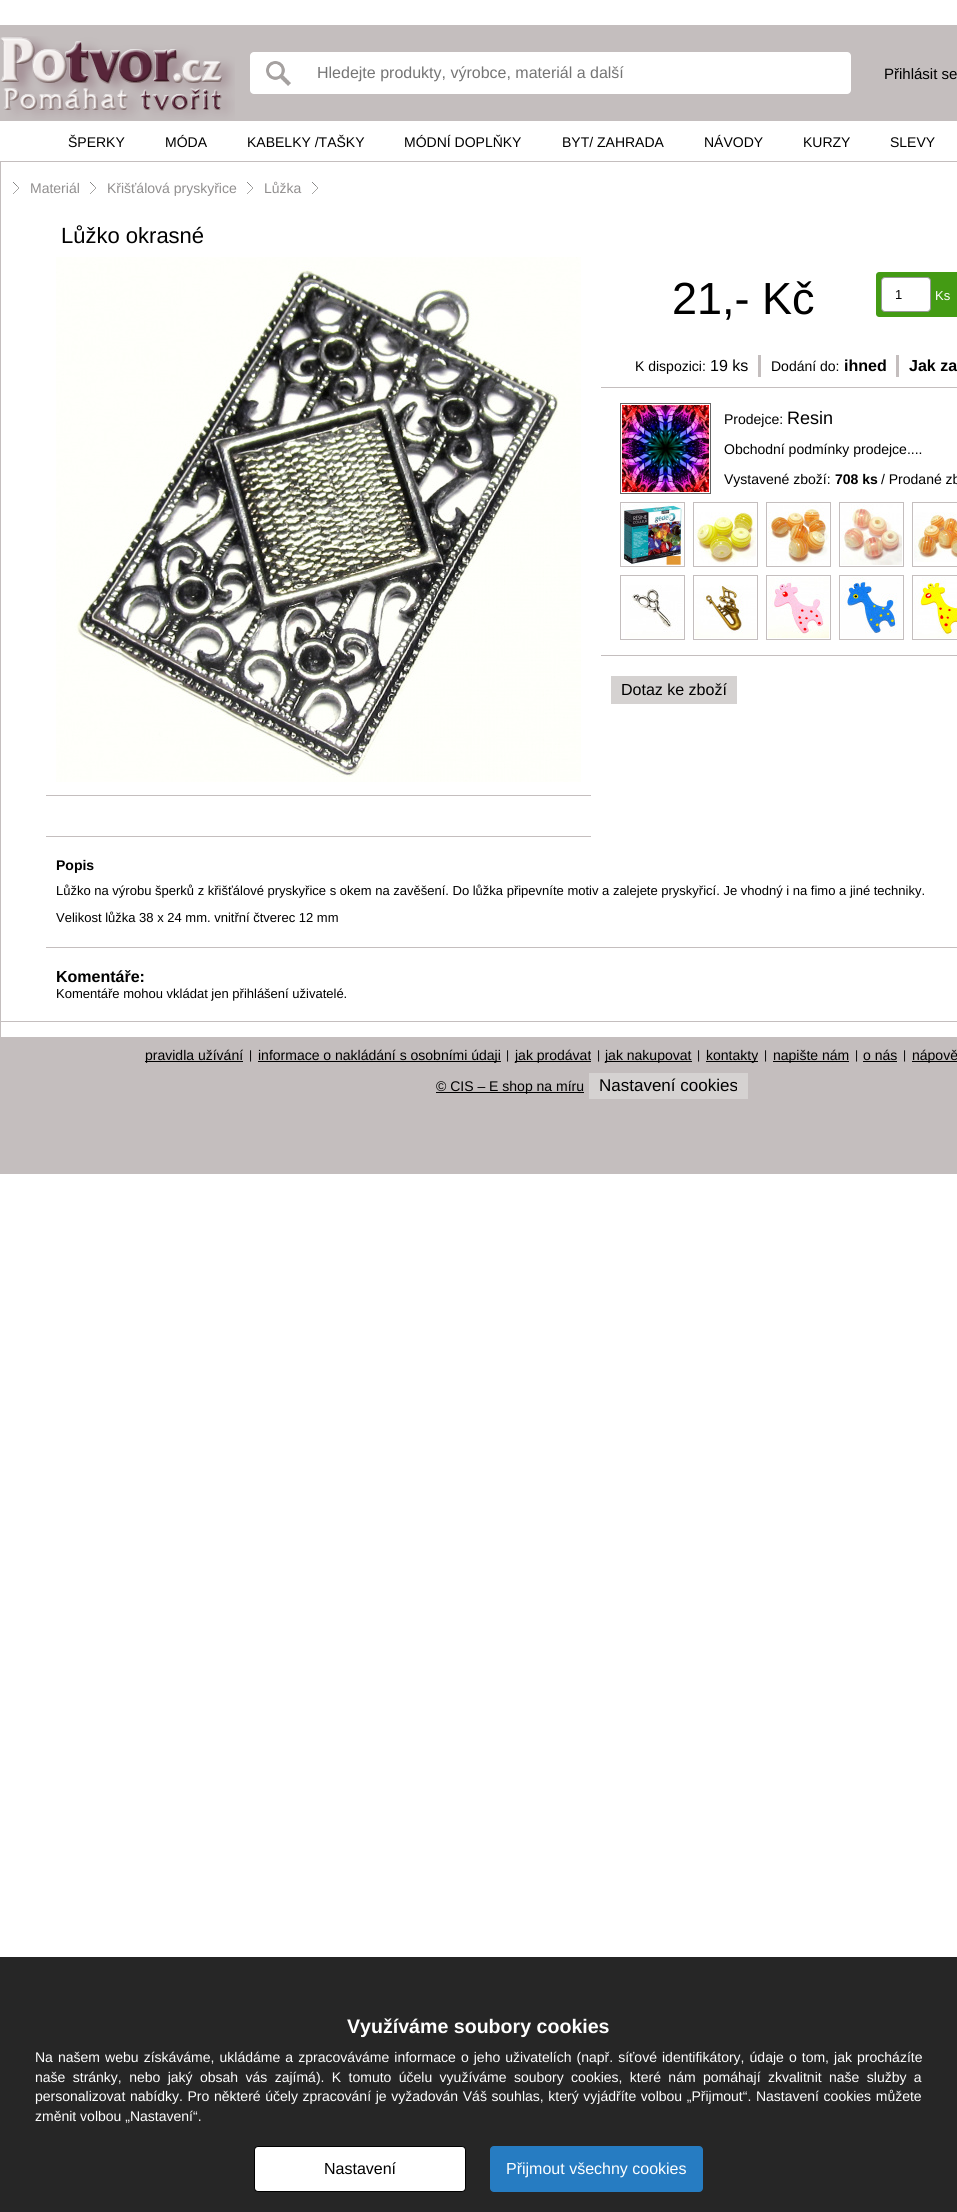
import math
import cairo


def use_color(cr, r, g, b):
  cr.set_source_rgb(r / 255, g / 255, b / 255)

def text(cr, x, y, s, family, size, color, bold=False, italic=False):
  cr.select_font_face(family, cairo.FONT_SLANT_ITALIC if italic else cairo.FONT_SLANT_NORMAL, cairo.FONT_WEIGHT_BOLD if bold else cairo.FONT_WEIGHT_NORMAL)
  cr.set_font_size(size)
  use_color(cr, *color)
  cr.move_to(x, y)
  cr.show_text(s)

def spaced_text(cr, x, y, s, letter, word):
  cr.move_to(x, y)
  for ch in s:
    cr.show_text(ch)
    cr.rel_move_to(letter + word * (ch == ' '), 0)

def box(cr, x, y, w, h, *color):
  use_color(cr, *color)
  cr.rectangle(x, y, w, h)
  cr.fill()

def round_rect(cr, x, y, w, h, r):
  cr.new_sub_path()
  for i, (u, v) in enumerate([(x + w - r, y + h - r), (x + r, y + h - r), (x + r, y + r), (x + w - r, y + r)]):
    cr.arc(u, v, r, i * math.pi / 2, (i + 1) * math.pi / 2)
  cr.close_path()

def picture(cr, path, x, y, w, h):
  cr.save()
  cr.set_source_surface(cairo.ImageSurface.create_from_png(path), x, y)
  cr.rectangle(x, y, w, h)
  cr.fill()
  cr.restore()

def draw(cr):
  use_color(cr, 255, 255, 255)
  cr.paint()
  box(cr, 0, 25, 957, 96, 196, 190, 190)
  picture(cr, "img_01.png", 0, 36, 235, 84)
  use_color(cr, 255, 255, 255)
  round_rect(cr, 250, 52, 601, 42, 4)
  cr.fill()
  picture(cr, "img_02.png", 266, 61, 25, 25)
  cr.rectangle(0.5, 161.5, 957, 860)
  use_color(cr, 196, 190, 190)
  cr.set_line_width(1)
  cr.stroke()
  picture(cr, "img_03.png", 13, 182, 6, 12)
  picture(cr, "img_03.png", 90, 182, 6, 12)
  picture(cr, "img_03.png", 247, 182, 6, 12)
  picture(cr, "img_03.png", 312, 182, 6, 12)
  picture(cr, "img_04.png", 56, 257, 525, 525)
  box(cr, 46, 795, 545, 1, 196, 190, 190)
  box(cr, 46, 836, 545, 1, 196, 190, 190)
  box(cr, 601, 387, 356, 1, 196, 190, 190)
  use_color(cr, 68, 155, 20)
  cr.new_path()
  cr.move_to(879, 272)
  cr.line_to(957, 272)
  cr.line_to(957, 317)
  cr.line_to(879, 317)
  cr.curve_to(877.5, 317, 876, 315.5, 876, 314)
  cr.line_to(876, 275)
  cr.curve_to(876, 273.5, 877.5, 272, 879, 272)
  cr.close_path()
  cr.fill()
  use_color(cr, 255, 255, 255)
  round_rect(cr, 881.5, 277.5, 49, 34, 3.5)
  cr.fill_preserve()
  use_color(cr, 153, 153, 153)
  cr.stroke()
  box(cr, 758, 355, 3, 22, 196, 190, 190)
  box(cr, 896, 355, 3, 22, 196, 190, 190)
  box(cr, 601, 655, 356, 1, 196, 190, 190)
  cr.rectangle(620.5, 403.5, 90, 90)
  use_color(cr, 102, 102, 102)
  cr.stroke()
  picture(cr, "img_05.png", 622, 405, 87, 87)
  cr.rectangle(620.5, 502.5, 64, 64)
  use_color(cr, 196, 190, 190)
  cr.stroke()
  picture(cr, "img_06.png", 622, 504, 61, 61)
  cr.rectangle(693.5, 502.5, 64, 64)
  cr.stroke()
  picture(cr, "img_07.png", 695, 512, 61, 53)
  cr.rectangle(766.5, 502.5, 64, 64)
  cr.stroke()
  picture(cr, "img_08.png", 768, 504, 61, 61)
  cr.rectangle(839.5, 502.5, 64, 64)
  cr.stroke()
  picture(cr, "img_09.png", 841, 504, 61, 61)
  cr.rectangle(912.5, 502.5, 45, 64)
  cr.stroke()
  picture(cr, "img_10.png", 914, 512, 43, 50)
  cr.rectangle(620.5, 575.5, 64, 64)
  cr.stroke()
  picture(cr, "img_11.png", 625, 585, 58, 53)
  cr.rectangle(693.5, 575.5, 64, 64)
  cr.stroke()
  picture(cr, "img_12.png", 695, 585, 61, 53)
  cr.rectangle(766.5, 575.5, 64, 64)
  cr.stroke()
  picture(cr, "img_13.png", 768, 577, 61, 61)
  cr.rectangle(839.5, 575.5, 64, 64)
  cr.stroke()
  picture(cr, "img_14.png", 841, 577, 61, 61)
  cr.rectangle(912.5, 575.5, 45, 64)
  cr.stroke()
  picture(cr, "img_15.png", 914, 577, 43, 61)
  box(cr, 611, 676, 126, 28, 213, 210, 209)
  box(cr, 46, 947, 911, 1, 196, 190, 190)
  box(cr, 0, 1037, 957, 137, 196, 190, 190)
  box(cr, 0, 1022, 1, 15, 196, 190, 190)
  box(cr, 145, 1061, 98, 1, 0, 0, 0)
  box(cr, 258, 1061, 243, 1, 0, 0, 0)
  box(cr, 515, 1061, 76, 1, 0, 0, 0)
  box(cr, 605, 1061, 87, 1, 0, 0, 0)
  box(cr, 706, 1061, 52, 1, 0, 0, 0)
  box(cr, 773, 1061, 76, 1, 0, 0, 0)
  box(cr, 863, 1061, 34, 1, 0, 0, 0)
  box(cr, 912, 1061, 45, 1, 0, 0, 0)
  box(cr, 436, 1092, 148, 1, 0, 0, 0)
  box(cr, 589, 1073, 159, 26, 213, 210, 209)
  box(cr, 0, 1957, 957, 255, 38, 38, 38)
  use_color(cr, 255, 255, 255)
  round_rect(cr, 254.5, 2146.5, 211, 45, 3.5)
  cr.fill_preserve()
  use_color(cr, 0, 0, 0)
  cr.stroke()
  use_color(cr, 38, 124, 194)
  round_rect(cr, 490.5, 2146.5, 212, 45, 3.5)
  cr.fill_preserve()
  cr.stroke()
  text(cr, 317, 78, "Hledejte produkty, výrobce, materiál a další", "Liberation Sans", 16, (117, 117, 117))
  text(cr, 884, 79, "Přihlásit se", "Arimo", 15, (0, 0, 0))
  text(cr, 68, 147, "ŠPERKY", "Arimo", 14, (0, 0, 0))
  text(cr, 165, 147, "MÓDA", "Arimo", 14, (0, 0, 0))
  text(cr, 247, 147, "KABELKY /TAŠKY", "Arimo", 14, (0, 0, 0))
  text(cr, 404, 147, "MÓDNÍ DOPLŇKY", "Arimo", 14, (0, 0, 0))
  text(cr, 562, 147, "BYT/ ZAHRADA", "Arimo", 14, (0, 0, 0))
  text(cr, 704, 147, "NÁVODY", "Arimo", 14, (0, 0, 0))
  text(cr, 803, 147, "KURZY", "Arimo", 14, (0, 0, 0))
  text(cr, 890, 147, "SLEVY", "Arimo", 14, (0, 0, 0))
  text(cr, 30, 193, "Materiál", "Arimo", 14, (145, 143, 143))
  text(cr, 107, 193, "Křišťálová pryskyřice", "Arimo", 14, (145, 143, 143))
  text(cr, 264, 193, "Lůžka", "Arimo", 14, (145, 143, 143))
  text(cr, 61, 243, "Lůžko okrasné", "Arimo", 22, (0, 0, 0))
  text(cr, 672, 314, "21,- Kč", "Arimo", 45, (0, 0, 0))
  text(cr, 895, 299, "1", "Liberation Sans", 13, (0, 0, 0))
  text(cr, 935, 300, "Ks", "Arimo", 13, (255, 255, 255))
  text(cr, 635, 371, "K dispozici:", "Arimo", 14, (0, 0, 0))
  text(cr, 710, 371, "19 ks", "Arimo", 16, (0, 0, 0))
  text(cr, 771, 371, "Dodání do:", "Arimo", 14, (0, 0, 0))
  text(cr, 844, 371, "ihned", "Arimo", 16, (0, 0, 0), bold=True)
  text(cr, 909, 371, "Jak za", "Arimo", 16, (0, 0, 0), bold=True)
  text(cr, 724, 424, "Prodejce:", "Arimo", 14, (0, 0, 0))
  text(cr, 787, 424, "Resin", "Arimo", 18, (0, 0, 0))
  text(cr, 724, 454, "Obchodní podmínky prodejce....", "Arimo", 14, (0, 0, 0))
  text(cr, 724, 484, "Vystavené zboží:", "Arimo", 14, (0, 0, 0))
  text(cr, 835, 484, "708 ks", "Arimo", 14, (0, 0, 0), bold=True)
  text(cr, 881, 484, "/ Prodané zb", "Arimo", 14, (0, 0, 0))
  text(cr, 621, 695, "Dotaz ke zboží", "Arimo", 16, (0, 0, 0))
  text(cr, 56, 870, "Popis", "Arimo", 14, (0, 0, 0), bold=True)
  text(cr, 56, 895, "Lůžko na výrobu šperků z křišťálové pryskyřice s okem na zavěšení. Do lůžka připevníte motiv a zalejete pryskyřicí. Je vhodný i na fimo a jiné techniky.", "Arimo", 13, (0, 0, 0))
  text(cr, 56, 922, "Velikost lůžka 38 x 24 mm. vnitřní čtverec 12 mm", "Arimo", 13, (0, 0, 0))
  text(cr, 56, 982, "Komentáře:", "Arimo", 16, (0, 0, 0), bold=True)
  text(cr, 56, 998, "Komentáře mohou vkládat jen přihlášení uživatelé.", "Arimo", 13, (0, 0, 0))
  text(cr, 145, 1060, "pravidla užívání", "Arimo", 14, (0, 0, 0))
  text(cr, 249, 1059, "|", "Arimo", 12, (0, 0, 0))
  text(cr, 258, 1060, "informace o nakládání s osobními údaji", "Arimo", 14, (0, 0, 0))
  text(cr, 506, 1059, "|", "Arimo", 12, (0, 0, 0))
  text(cr, 515, 1060, "jak prodávat", "Arimo", 14, (0, 0, 0))
  text(cr, 597, 1059, "|", "Arimo", 12, (0, 0, 0))
  text(cr, 605, 1060, "jak nakupovat", "Arimo", 14, (0, 0, 0))
  text(cr, 697, 1059, "|", "Arimo", 12, (0, 0, 0))
  text(cr, 706, 1060, "kontakty", "Arimo", 14, (0, 0, 0))
  text(cr, 764, 1059, "|", "Arimo", 12, (0, 0, 0))
  text(cr, 773, 1060, "napište nám", "Arimo", 14, (0, 0, 0))
  text(cr, 855, 1059, "|", "Arimo", 12, (0, 0, 0))
  text(cr, 863, 1060, "o nás", "Arimo", 14, (0, 0, 0))
  text(cr, 903, 1059, "|", "Arimo", 12, (0, 0, 0))
  text(cr, 912, 1060, "nápově", "Arimo", 14, (0, 0, 0))
  text(cr, 436, 1091, "© CIS – E shop na míru", "Arimo", 14, (0, 0, 0))
  text(cr, 599, 1091, "Nastavení cookies", "Liberation Sans", 17, (0, 0, 0))
  text(cr, 347, 2033, "Využíváme soubory cookies", "Arimo", 19.6, (255, 255, 255), bold=True)
  cr.select_font_face("Arimo")
  cr.set_font_size(14)
  spaced_text(cr, 35, 2062, "Na našem webu získáváme, ukládáme a zpracováváme informace o jeho uživatelích (např. síťové identifikátory, údaje o tom, jak procházíte", 0, 1.2)
  spaced_text(cr, 35, 2082, "naše stránky, nebo jaký obsah vás zajímá). K tomuto účelu využíváme soubory cookies, které nám pomáhají zkvalitnit naše služby a", 0, 3.5)
  spaced_text(cr, 35, 2101, "personalizovat nabídky. Pro některé účely zpracování je vyžadován Váš souhlas, který vyjádříte volbou „Přijmout“. Nastavení cookies můžete", 0, 0.75)
  text(cr, 35, 2121, "změnit volbou „Nastavení“.", "Arimo", 14, (255, 255, 255))
  text(cr, 324, 2174, "Nastavení", "Arimo", 16, (0, 0, 0))
  text(cr, 506, 2174, "Přijmout všechny cookies", "Arimo", 16, (255, 255, 255))


surface = cairo.ImageSurface(cairo.FORMAT_RGB24, 957, 2212)
cr = cairo.Context(surface)
options = cairo.FontOptions()
options.set_hint_metrics(cairo.HINT_METRICS_OFF)
options.set_hint_style(cairo.HINT_STYLE_NONE)
cr.set_font_options(options)
cr.set_miter_limit(4)
draw(cr)
surface.write_to_png("out.png")
